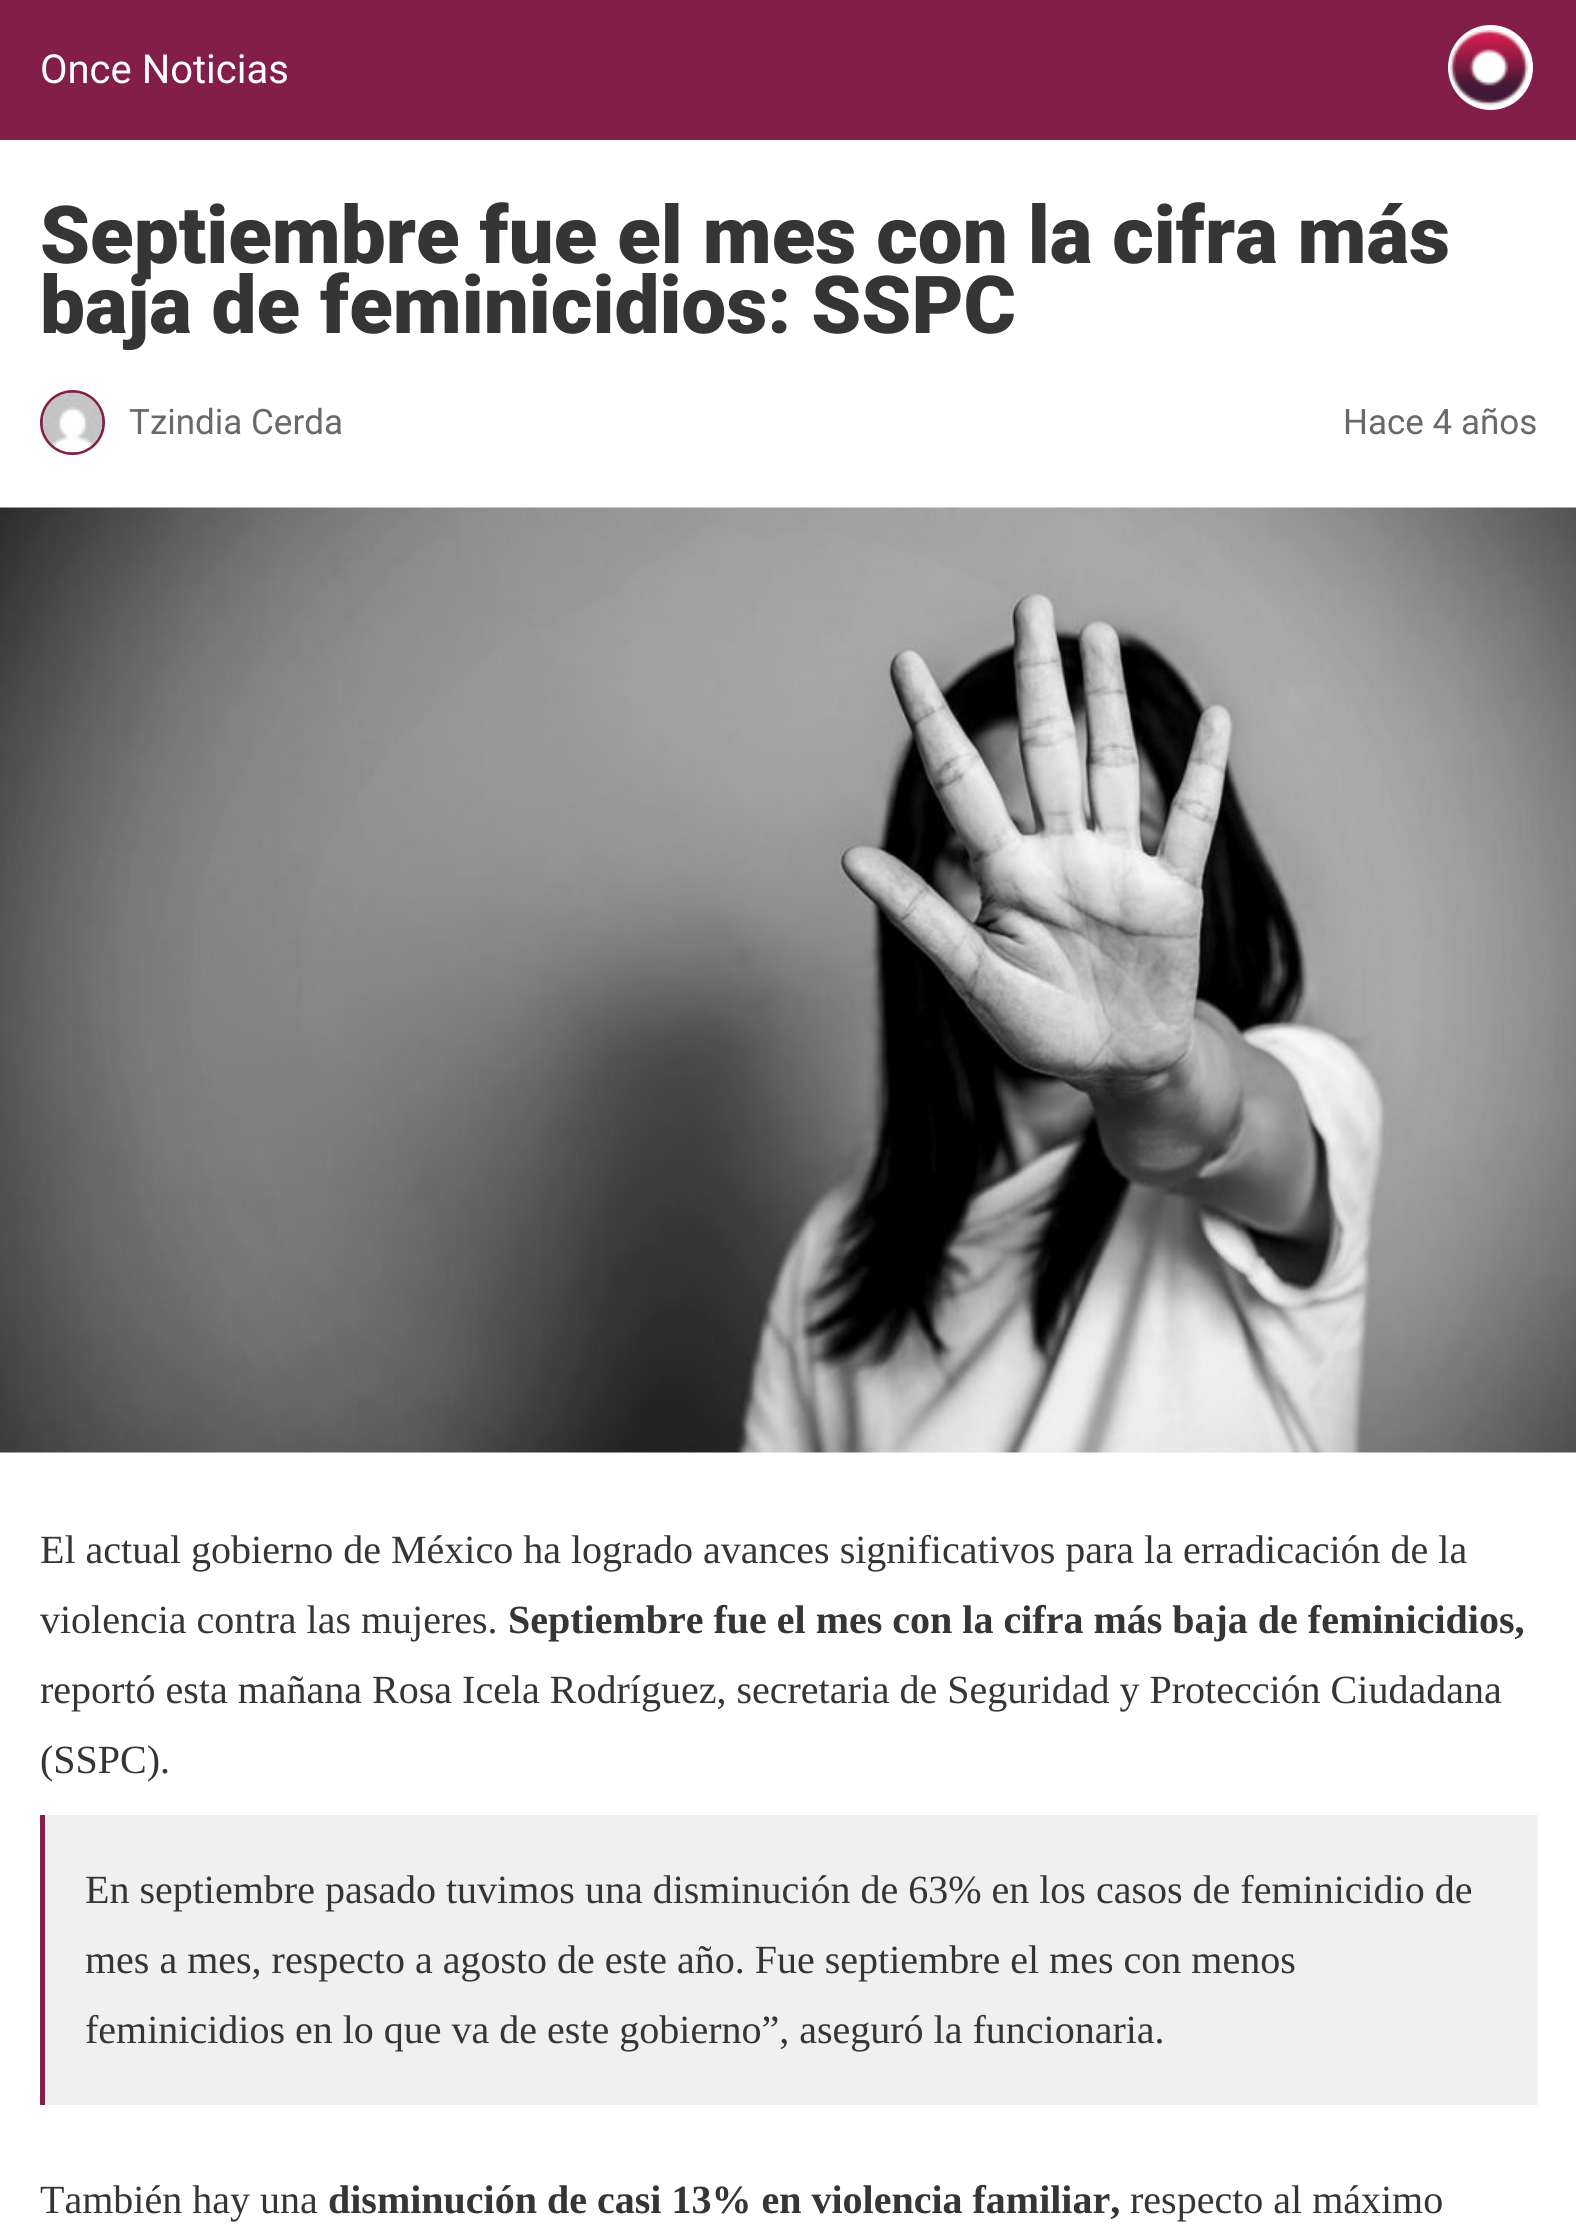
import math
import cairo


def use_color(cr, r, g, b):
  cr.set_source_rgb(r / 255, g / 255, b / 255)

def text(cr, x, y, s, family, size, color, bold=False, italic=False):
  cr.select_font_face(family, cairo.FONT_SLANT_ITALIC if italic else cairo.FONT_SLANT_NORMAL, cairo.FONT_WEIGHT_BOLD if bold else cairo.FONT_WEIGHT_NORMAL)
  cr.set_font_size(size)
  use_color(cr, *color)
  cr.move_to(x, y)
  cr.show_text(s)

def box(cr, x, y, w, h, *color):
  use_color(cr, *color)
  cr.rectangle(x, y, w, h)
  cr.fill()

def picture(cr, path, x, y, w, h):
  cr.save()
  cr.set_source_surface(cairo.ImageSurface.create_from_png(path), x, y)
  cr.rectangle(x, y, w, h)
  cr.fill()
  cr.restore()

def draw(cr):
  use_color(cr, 255, 255, 255)
  cr.paint()
  box(cr, 0, 0, 1576, 140, 130, 30, 73)
  use_color(cr, 255, 255, 255)
  cr.arc(1490.5, 67.5, 41, 0, 2 * math.pi)
  cr.fill_preserve()
  cr.set_line_width(3)
  cr.stroke()
  picture(cr, "img_01.png", 1450, 29, 79, 77)
  cr.arc(72.5, 422.5, 31, 0, 2 * math.pi)
  use_color(cr, 130, 30, 73)
  cr.stroke()
  picture(cr, "img_02.png", 42, 392, 61, 61)
  picture(cr, "img_03.png", 0, 507, 1576, 946)
  box(cr, 45, 1815, 1493, 290, 240, 240, 240)
  box(cr, 40, 1815, 5, 290, 130, 30, 73)
  text(cr, 40, 83, "Once Noticias", "Roboto", 40, (255, 255, 255))
  text(cr, 40, 263, "Septiembre fue el mes con la cifra más", "Roboto Black", 80, (53, 53, 53))
  text(cr, 40, 333, "baja de feminicidios: SSPC", "Roboto Black", 80, (53, 53, 53))
  text(cr, 129, 434, "Tzindia Cerda", "Roboto", 35, (105, 105, 105))
  text(cr, 1343, 434, "Hace 4 años", "Roboto", 35, (105, 105, 105))
  text(cr, 40, 1563, "El actual gobierno de México ha logrado avances significativos para la erradicación de la", "Liberation Serif", 40, (53, 53, 53))
  text(cr, 40, 1633, "violencia contra las mujeres.", "Liberation Serif", 40, (53, 53, 53))
  text(cr, 508, 1633, "Septiembre fue el mes con la cifra más baja de feminicidios,", "Liberation Serif", 40, (53, 53, 53), bold=True)
  text(cr, 40, 1703, "reportó esta mañana Rosa Icela Rodríguez, secretaria de Seguridad y Protección Ciudadana", "Liberation Serif", 40, (53, 53, 53))
  text(cr, 40, 1773, "(SSPC).", "Liberation Serif", 40, (53, 53, 53))
  text(cr, 85, 1903, "En septiembre pasado tuvimos una disminución de 63% en los casos de feminicidio de", "Liberation Serif", 40, (53, 53, 53))
  text(cr, 85, 1973, "mes a mes, respecto a agosto de este año. Fue septiembre el mes con menos", "Liberation Serif", 40, (53, 53, 53))
  text(cr, 85, 2043, "feminicidios en lo que va de este gobierno”, aseguró la funcionaria.", "Liberation Serif", 40, (53, 53, 53))
  text(cr, 40, 2213, "También hay una", "Liberation Serif", 40, (53, 53, 53))
  text(cr, 328, 2213, "disminución de casi 13% en violencia familiar,", "Liberation Serif", 40, (53, 53, 53), bold=True)
  text(cr, 1130, 2213, "respecto al máximo", "Liberation Serif", 40, (53, 53, 53))


surface = cairo.ImageSurface(cairo.FORMAT_RGB24, 1576, 2233)
cr = cairo.Context(surface)
options = cairo.FontOptions()
options.set_hint_metrics(cairo.HINT_METRICS_OFF)
options.set_hint_style(cairo.HINT_STYLE_NONE)
cr.set_font_options(options)
cr.set_miter_limit(4)
draw(cr)
surface.write_to_png("out.png")
